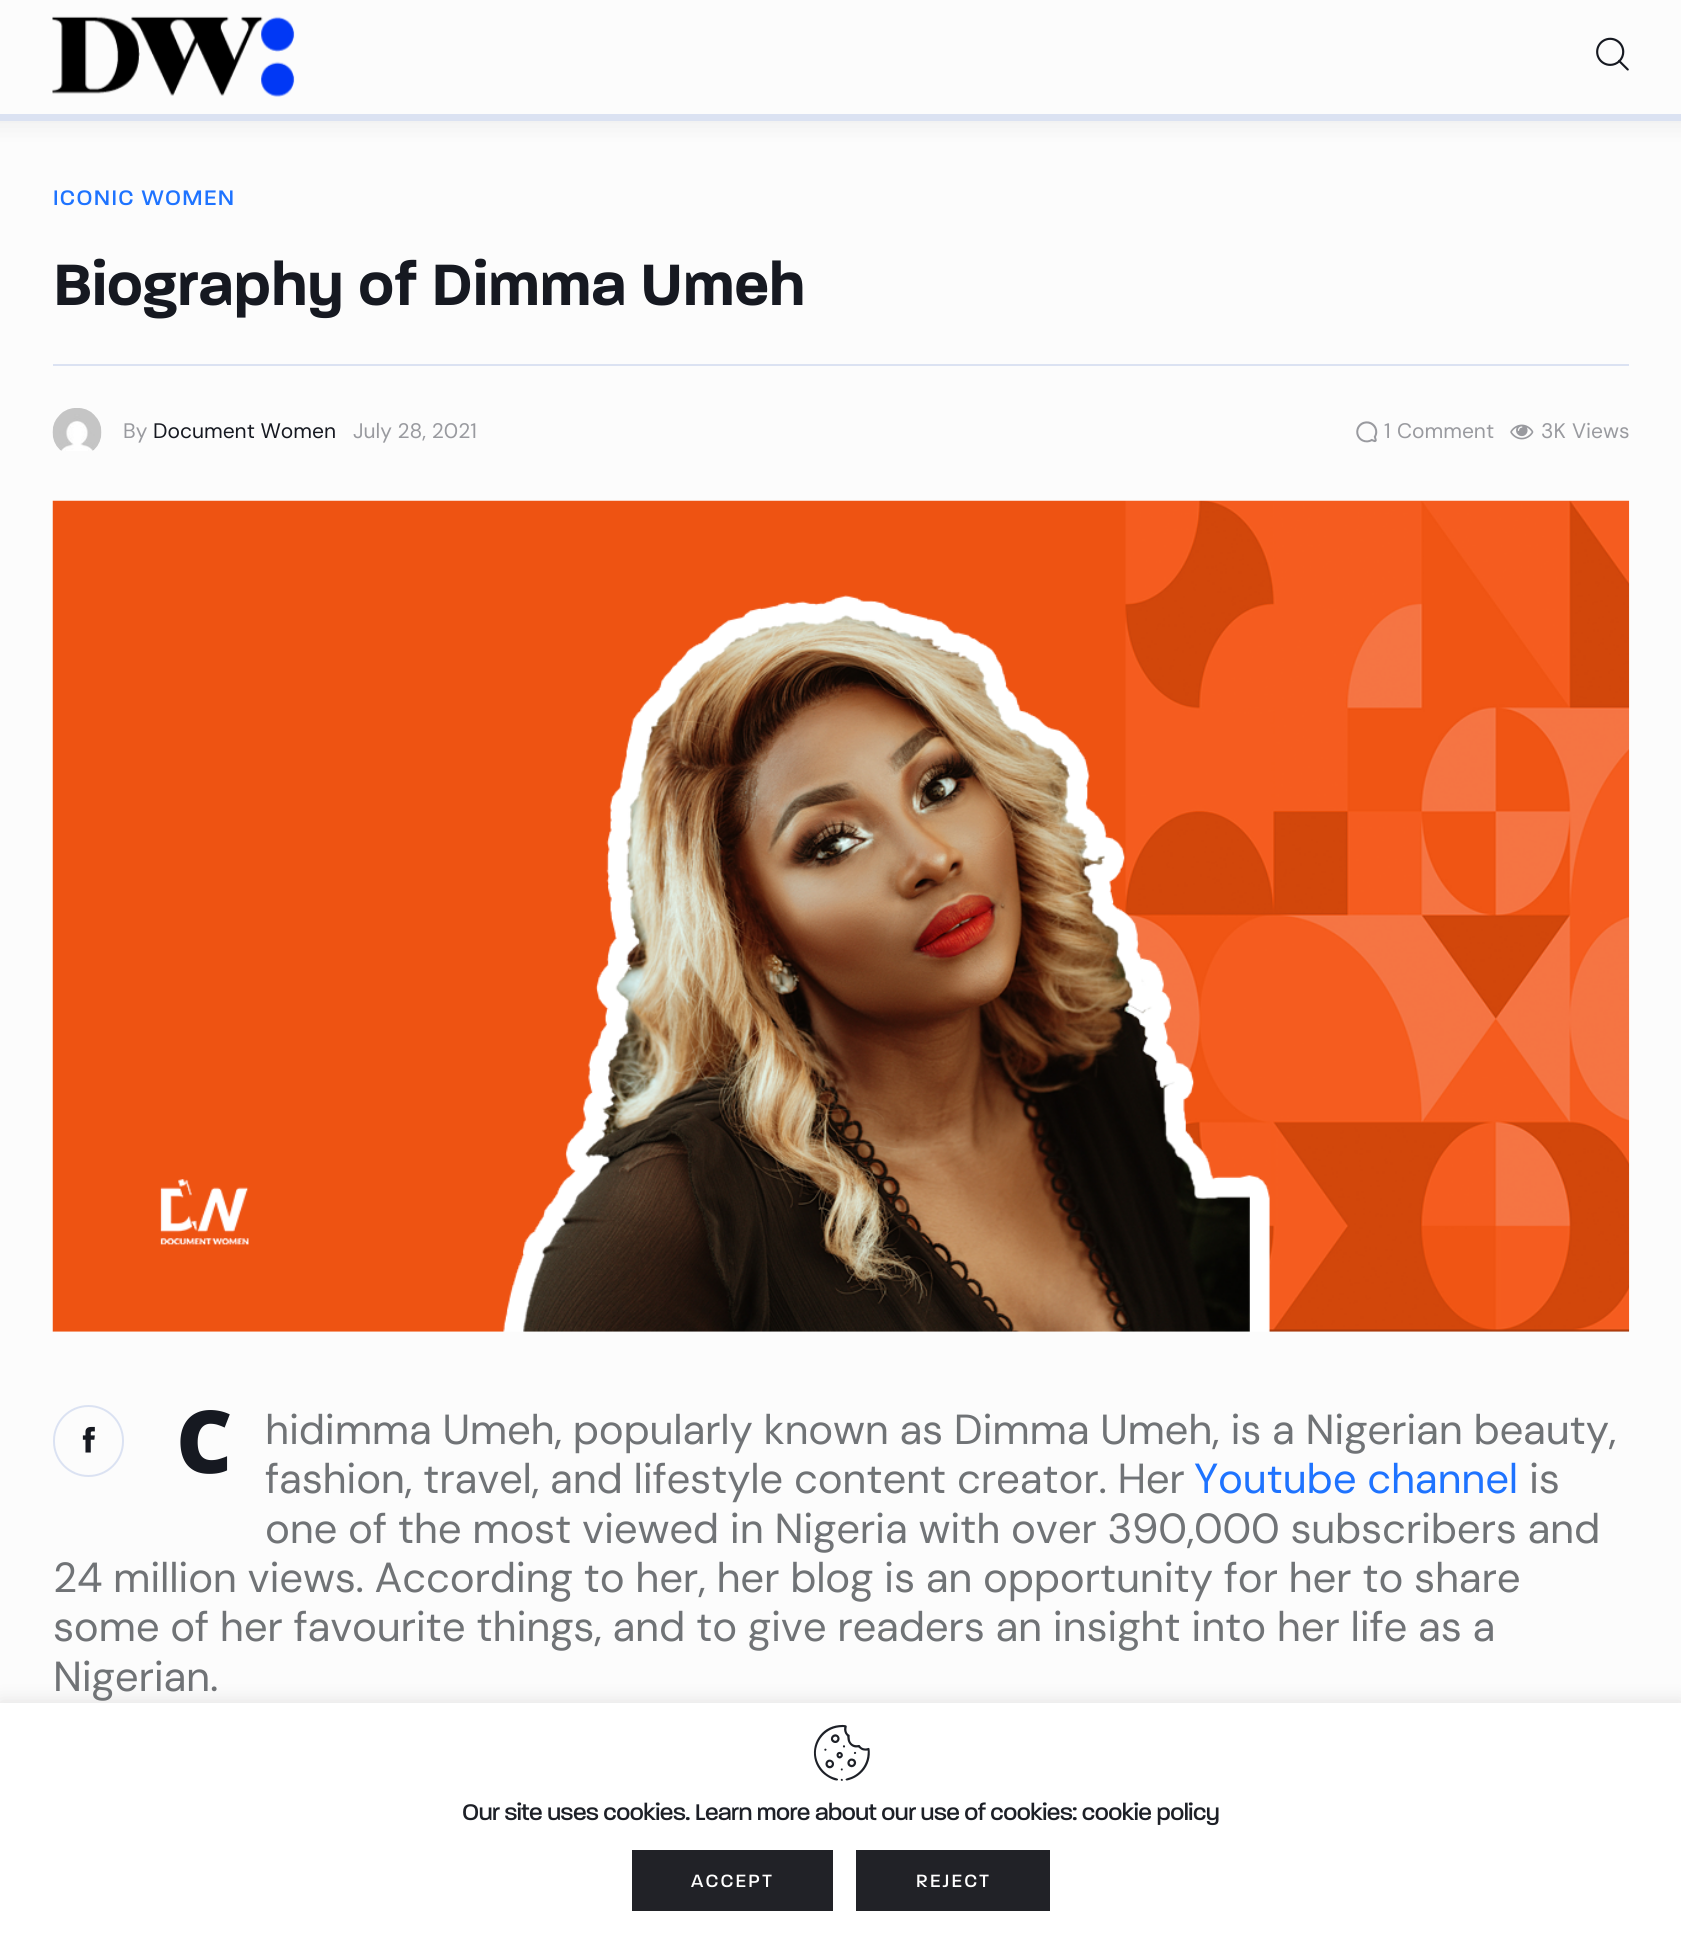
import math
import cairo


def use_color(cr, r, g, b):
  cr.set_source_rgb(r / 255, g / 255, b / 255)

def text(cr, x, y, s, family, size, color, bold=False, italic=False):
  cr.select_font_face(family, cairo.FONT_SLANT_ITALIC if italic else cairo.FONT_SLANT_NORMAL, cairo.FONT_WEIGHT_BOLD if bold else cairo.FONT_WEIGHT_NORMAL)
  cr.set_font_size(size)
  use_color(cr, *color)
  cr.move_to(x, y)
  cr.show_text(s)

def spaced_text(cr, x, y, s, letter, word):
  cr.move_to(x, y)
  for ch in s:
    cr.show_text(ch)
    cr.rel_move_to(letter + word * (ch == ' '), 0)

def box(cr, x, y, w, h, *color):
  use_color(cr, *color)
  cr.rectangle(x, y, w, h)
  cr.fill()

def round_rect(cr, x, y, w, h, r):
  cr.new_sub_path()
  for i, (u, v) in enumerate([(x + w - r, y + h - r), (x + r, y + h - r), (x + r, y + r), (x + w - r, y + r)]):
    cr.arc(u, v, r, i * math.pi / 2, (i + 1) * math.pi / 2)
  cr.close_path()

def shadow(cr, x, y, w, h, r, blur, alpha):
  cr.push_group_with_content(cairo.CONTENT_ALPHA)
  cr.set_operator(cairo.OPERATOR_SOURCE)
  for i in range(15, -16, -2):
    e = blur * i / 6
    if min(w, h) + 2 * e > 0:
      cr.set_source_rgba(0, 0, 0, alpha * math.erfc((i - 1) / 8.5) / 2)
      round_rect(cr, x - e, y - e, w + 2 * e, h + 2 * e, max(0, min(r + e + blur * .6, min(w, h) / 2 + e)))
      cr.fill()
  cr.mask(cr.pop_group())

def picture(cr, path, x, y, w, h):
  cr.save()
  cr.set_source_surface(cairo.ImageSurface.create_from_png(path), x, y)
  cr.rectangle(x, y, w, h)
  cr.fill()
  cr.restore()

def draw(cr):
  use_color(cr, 252, 252, 252)
  cr.paint()
  use_color(cr, 0, 0, 0)
  shadow(cr, -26, 5, 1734, 116, 0, 14, 0.08)
  box(cr, 0, 0, 1681, 114, 252, 252, 252)
  picture(cr, "img_01.png", 52, 16, 243, 81)
  picture(cr, "img_02.png", 1596, 37, 33, 34)
  box(cr, 0, 114, 1681, 7, 219, 226, 242)
  box(cr, 53, 364, 1576, 2, 219, 226, 242)
  picture(cr, "img_03.png", 52, 408, 50, 43)
  picture(cr, "img_04.png", 1356, 421, 22, 22)
  picture(cr, "img_05.png", 1510, 424, 24, 16)
  picture(cr, "img_06.png", 52, 500, 1578, 832)
  round_rect(cr, 54, 1406, 69, 70, 34.5)
  cr.stroke()
  picture(cr, "img_07.png", 82, 1426, 13, 27)
  use_color(cr, 172, 171, 171)
  shadow(cr, 0, 1701, 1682, 235, 0, 9, 0.3)
  box(cr, 0, 1703, 1681, 234, 255, 255, 255)
  picture(cr, "img_08.png", 813, 1724, 57, 57)
  box(cr, 632, 1850, 201, 61, 33, 34, 39)
  box(cr, 856, 1850, 194, 61, 33, 34, 39)
  cr.select_font_face("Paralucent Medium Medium")
  cr.set_font_size(22.75)
  use_color(cr, 30, 115, 255)
  spaced_text(cr, 53, 205, "ICONIC WOMEN", 1.4, 0)
  text(cr, 53, 305, "Biography of Dimma Umeh", "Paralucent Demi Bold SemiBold", 63, (22, 25, 33))
  text(cr, 123, 438, "By", "DM Sans", 21, (153, 154, 159))
  text(cr, 153, 438, "Document Women", "DM Sans", 21, (22, 25, 33))
  text(cr, 353, 438, "July 28, 2021", "DM Sans", 21, (153, 154, 159))
  text(cr, 1384, 438, "1", "DM Sans", 21, (153, 154, 159))
  text(cr, 1397, 438, "Comment", "DM Sans", 21, (153, 154, 159))
  text(cr, 1541, 438, "3K", "DM Sans", 21, (153, 154, 159))
  text(cr, 1572, 438, "Views", "DM Sans", 21, (153, 154, 159))
  cr.select_font_face("Noto Sans Black")
  cr.set_font_size(87)
  use_color(cr, 22, 25, 33)
  spaced_text(cr, 176, 1473, "C", -0.25, 0)
  cr.select_font_face("DM Sans")
  cr.set_font_size(42)
  use_color(cr, 112, 115, 118)
  spaced_text(cr, 265, 1444, "hidimma Umeh, popularly known as Dimma Umeh, is a Nigerian beauty,", -0.25, 0)
  spaced_text(cr, 265, 1493, "fashion, travel, and lifestyle content creator. Her", -0.25, 0)
  use_color(cr, 30, 115, 255)
  spaced_text(cr, 1194, 1493, "Youtube channel", -0.25, 0)
  use_color(cr, 112, 115, 118)
  spaced_text(cr, 1529, 1493, "is", -0.25, 0)
  spaced_text(cr, 265, 1543, "one of the most viewed in Nigeria with over 390,000 subscribers and", -0.25, 0)
  spaced_text(cr, 53, 1592, "24 million views. According to her, her blog is an opportunity for her to share", -0.25, 0)
  spaced_text(cr, 53, 1641, "some of her favourite things, and to give readers an insight into her life as a", -0.25, 0)
  spaced_text(cr, 53, 1691, "Nigerian.", -0.25, 0)
  cr.select_font_face("Paralucent Medium Medium")
  cr.set_font_size(24.5)
  use_color(cr, 29, 32, 39)
  spaced_text(cr, 462, 1820, "Our site uses cookies. Learn more about our use of cookies: cookie policy", -0.5, 0)
  cr.set_font_size(19.25)
  use_color(cr, 255, 255, 255)
  spaced_text(cr, 691, 1887, "ACCEPT", 2.25, 0)
  spaced_text(cr, 916, 1887, "REJECT", 2.25, 0)


surface = cairo.ImageSurface(cairo.FORMAT_RGB24, 1681, 1937)
cr = cairo.Context(surface)
options = cairo.FontOptions()
options.set_hint_metrics(cairo.HINT_METRICS_OFF)
options.set_hint_style(cairo.HINT_STYLE_NONE)
cr.set_font_options(options)
cr.set_miter_limit(4)
draw(cr)
surface.write_to_png("out.png")
